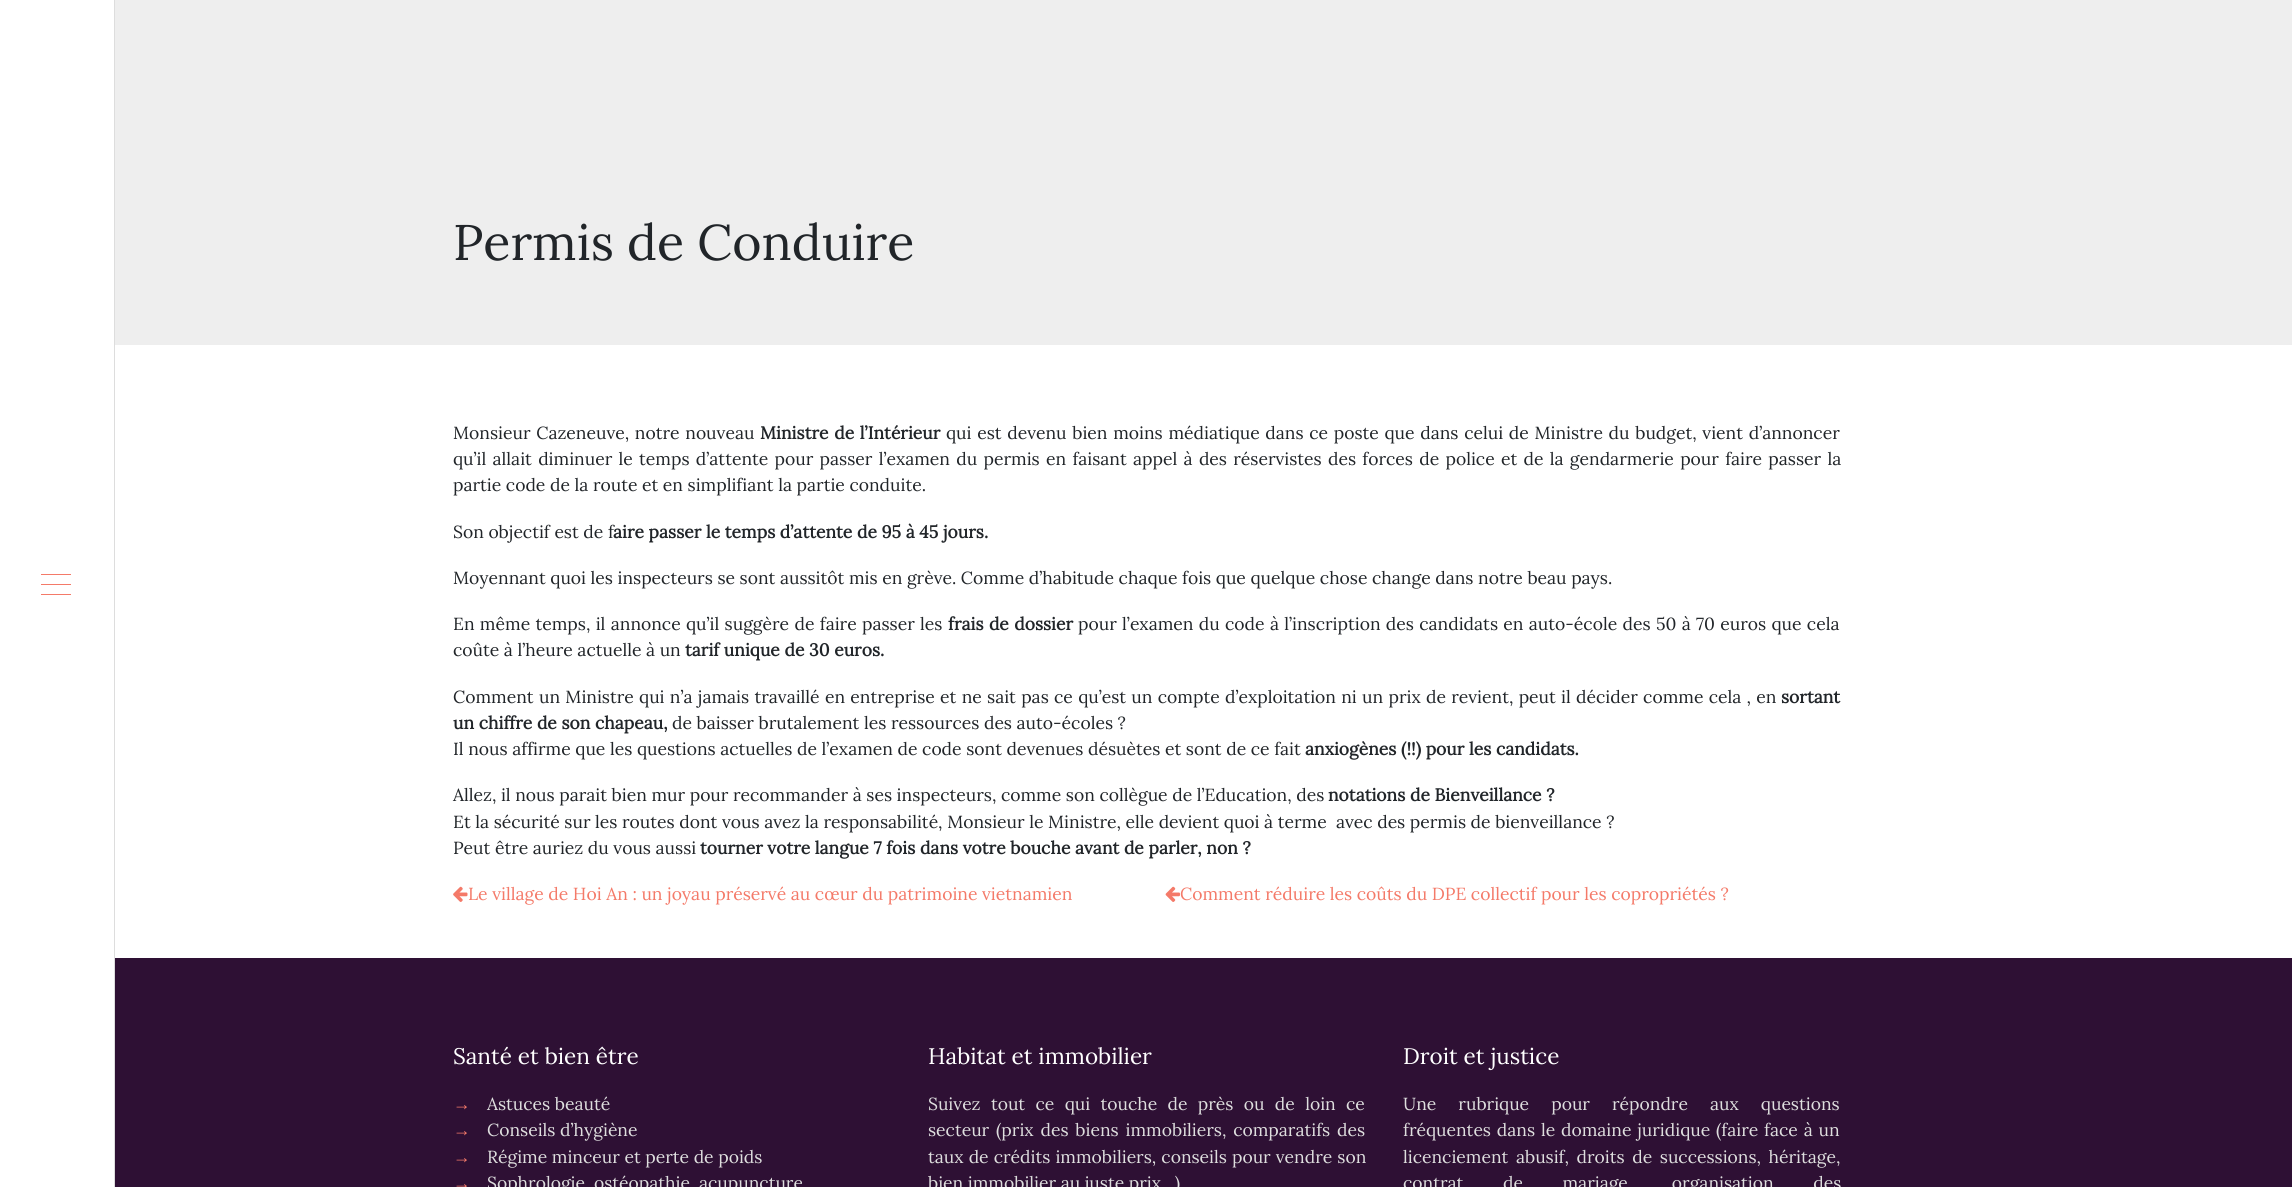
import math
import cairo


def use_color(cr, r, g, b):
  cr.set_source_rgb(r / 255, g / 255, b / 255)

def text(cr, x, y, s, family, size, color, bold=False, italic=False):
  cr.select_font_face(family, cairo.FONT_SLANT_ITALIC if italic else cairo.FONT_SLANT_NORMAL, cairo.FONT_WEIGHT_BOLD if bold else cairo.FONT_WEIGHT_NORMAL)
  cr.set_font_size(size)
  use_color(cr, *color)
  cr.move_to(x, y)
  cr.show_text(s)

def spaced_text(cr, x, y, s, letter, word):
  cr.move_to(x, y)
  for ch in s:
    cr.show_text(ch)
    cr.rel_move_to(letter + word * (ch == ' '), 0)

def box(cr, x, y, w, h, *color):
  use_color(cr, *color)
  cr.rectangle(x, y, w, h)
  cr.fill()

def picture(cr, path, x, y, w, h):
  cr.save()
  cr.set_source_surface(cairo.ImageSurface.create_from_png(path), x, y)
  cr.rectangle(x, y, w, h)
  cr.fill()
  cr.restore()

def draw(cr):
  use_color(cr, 255, 255, 255)
  cr.paint()
  box(cr, 114, 0, 1, 1187, 221, 221, 221)
  box(cr, 41, 574, 30, 1, 244, 122, 105)
  box(cr, 41, 584, 30, 1, 244, 122, 105)
  box(cr, 41, 594, 30, 1, 244, 122, 105)
  box(cr, 115, 0, 2177, 345, 238, 238, 238)
  picture(cr, "img_01.png", 453, 886, 15, 16)
  picture(cr, "img_02.png", 1165, 886, 15, 16)
  box(cr, 115, 958, 2177, 229, 46, 16, 52)
  text(cr, 453, 260, "Permis de Conduire", "Lora", 50, (33, 37, 41))
  cr.set_font_size(17.5)
  spaced_text(cr, 453, 439, "Monsieur Cazeneuve, notre nouveau", 0, 1.1)
  cr.select_font_face("Lora", cairo.FONT_SLANT_NORMAL, cairo.FONT_WEIGHT_BOLD)
  spaced_text(cr, 760, 439, "Ministre de l’Intérieur", 0, 1.1)
  cr.select_font_face("Lora")
  spaced_text(cr, 946, 439, "qui est devenu bien moins médiatique dans ce poste que dans celui de Ministre du budget, vient d’annoncer", 0, 1.1)
  spaced_text(cr, 453, 465, "qu’il allait diminuer le temps d’attente pour passer l’examen du permis en faisant appel à des réservistes des forces de police et de la gendarmerie pour faire passer la", 0, 1.7)
  text(cr, 453, 491, "partie code de la route et en simplifiant la partie conduite.", "Lora", 17.5, (33, 37, 41))
  text(cr, 453, 538, "Son objectif est de f", "Lora", 17.5, (33, 37, 41))
  text(cr, 613, 538, "aire passer le temps d’attente de 95 à 45 jours.", "Lora", 17.5, (33, 37, 41), bold=True)
  text(cr, 453, 584, "Moyennant quoi les inspecteurs se sont aussitôt mis en grève. Comme d’habitude chaque fois que quelque chose change dans notre beau pays.", "Lora", 17.5, (33, 37, 41))
  spaced_text(cr, 453, 630, "En même temps, il annonce qu’il suggère de faire passer les", 0, 0.75)
  cr.select_font_face("Lora", cairo.FONT_SLANT_NORMAL, cairo.FONT_WEIGHT_BOLD)
  spaced_text(cr, 948, 630, "frais de dossier", 0, 0.75)
  cr.select_font_face("Lora")
  spaced_text(cr, 1078, 630, "pour l’examen du code à l’inscription des candidats en auto-école des 50 à 70 euros que cela", 0, 0.75)
  text(cr, 453, 656, "coûte à l’heure actuelle à un", "Lora", 17.5, (33, 37, 41))
  text(cr, 685, 656, "tarif unique de 30 euros.", "Lora", 17.5, (33, 37, 41), bold=True)
  cr.select_font_face("Lora")
  spaced_text(cr, 453, 703, "Comment un Ministre qui n’a jamais travaillé en entreprise et ne sait pas ce qu’est un compte d’exploitation ni un prix de revient, peut il décider comme cela , en", 0, 0.7)
  text(cr, 1781, 703, "sortant", "Lora", 17.5, (33, 37, 41), bold=True)
  text(cr, 453, 729, "un chiffre de son chapeau,", "Lora", 17.5, (33, 37, 41), bold=True)
  text(cr, 672, 729, "de baisser brutalement les ressources des auto-écoles ?", "Lora", 17.5, (33, 37, 41))
  text(cr, 453, 755, "Il nous affirme que les questions actuelles de l’examen de code sont devenues désuètes et sont de ce fait", "Lora", 17.5, (33, 37, 41))
  text(cr, 1305, 755, "anxiogènes (!!) pour les candidats.", "Lora", 17.5, (33, 37, 41), bold=True)
  text(cr, 453, 801, "Allez, il nous parait bien mur pour recommander à ses inspecteurs, comme son collègue de l’Education, des", "Lora", 17.5, (33, 37, 41))
  text(cr, 1328, 801, "notations de Bienveillance ?", "Lora", 17.5, (33, 37, 41), bold=True)
  text(cr, 453, 828, "Et la sécurité sur les routes dont vous avez la responsabilité, Monsieur le Ministre, elle devient quoi à terme  avec des permis de bienveillance ?", "Lora", 17.5, (33, 37, 41))
  text(cr, 453, 854, "Peut être auriez du vous aussi", "Lora", 17.5, (33, 37, 41))
  text(cr, 700, 854, "tourner votre langue 7 fois dans votre bouche avant de parler, non ?", "Lora", 17.5, (33, 37, 41), bold=True)
  text(cr, 468, 900, "Le village de Hoi An : un joyau préservé au cœur du patrimoine vietnamien", "Lora", 17.5, (244, 122, 105))
  text(cr, 1180, 900, "Comment réduire les coûts du DPE collectif pour les copropriétés ?", "Lora", 17.5, (244, 122, 105))
  text(cr, 453, 1064, "Santé et bien être", "Lora", 22.5, (255, 255, 255))
  text(cr, 453, 1110, "→", "Liberation Serif", 17.5, (244, 122, 105))
  text(cr, 487, 1110, "Astuces beauté", "Lora", 17.5, (222, 222, 222))
  text(cr, 453, 1136, "→", "Liberation Serif", 17.5, (244, 122, 105))
  text(cr, 487, 1136, "Conseils d’hygiène", "Lora", 17.5, (222, 222, 222))
  text(cr, 453, 1163, "→", "Liberation Serif", 17.5, (244, 122, 105))
  text(cr, 487, 1163, "Régime minceur et perte de poids", "Lora", 17.5, (222, 222, 222))
  text(cr, 453, 1189, "→", "Liberation Serif", 17.5, (244, 122, 105))
  text(cr, 487, 1189, "Sophrologie, ostéopathie, acupuncture", "Lora", 17.5, (222, 222, 222))
  text(cr, 928, 1064, "Habitat et immobilier", "Lora", 22.5, (255, 255, 255))
  cr.set_font_size(17.5)
  use_color(cr, 222, 222, 222)
  spaced_text(cr, 928, 1110, "Suivez tout ce qui touche de près ou de loin ce", 0, 5.75)
  spaced_text(cr, 928, 1136, "secteur (prix des biens immobiliers, comparatifs des", 0, 2.25)
  spaced_text(cr, 928, 1163, "taux de crédits immobiliers, conseils pour vendre son", 0, 0.5)
  text(cr, 928, 1189, "bien immobilier au juste prix…)", "Lora", 17.5, (222, 222, 222))
  text(cr, 1403, 1064, "Droit et justice", "Lora", 22.5, (255, 255, 255))
  cr.set_font_size(17.5)
  use_color(cr, 222, 222, 222)
  spaced_text(cr, 1403, 1110, "Une rubrique pour répondre aux questions", 0, 17.5)
  spaced_text(cr, 1403, 1136, "fréquentes dans le domaine juridique (faire face à un", 0, 1.25)
  spaced_text(cr, 1403, 1163, "licenciement abusif, droits de successions, héritage,", 0, 3)
  spaced_text(cr, 1403, 1189, "contrat de mariage, organisation des", 0, 35)


surface = cairo.ImageSurface(cairo.FORMAT_RGB24, 2292, 1187)
cr = cairo.Context(surface)
options = cairo.FontOptions()
options.set_hint_metrics(cairo.HINT_METRICS_OFF)
options.set_hint_style(cairo.HINT_STYLE_NONE)
cr.set_font_options(options)
cr.set_miter_limit(4)
draw(cr)
surface.write_to_png("out.png")
